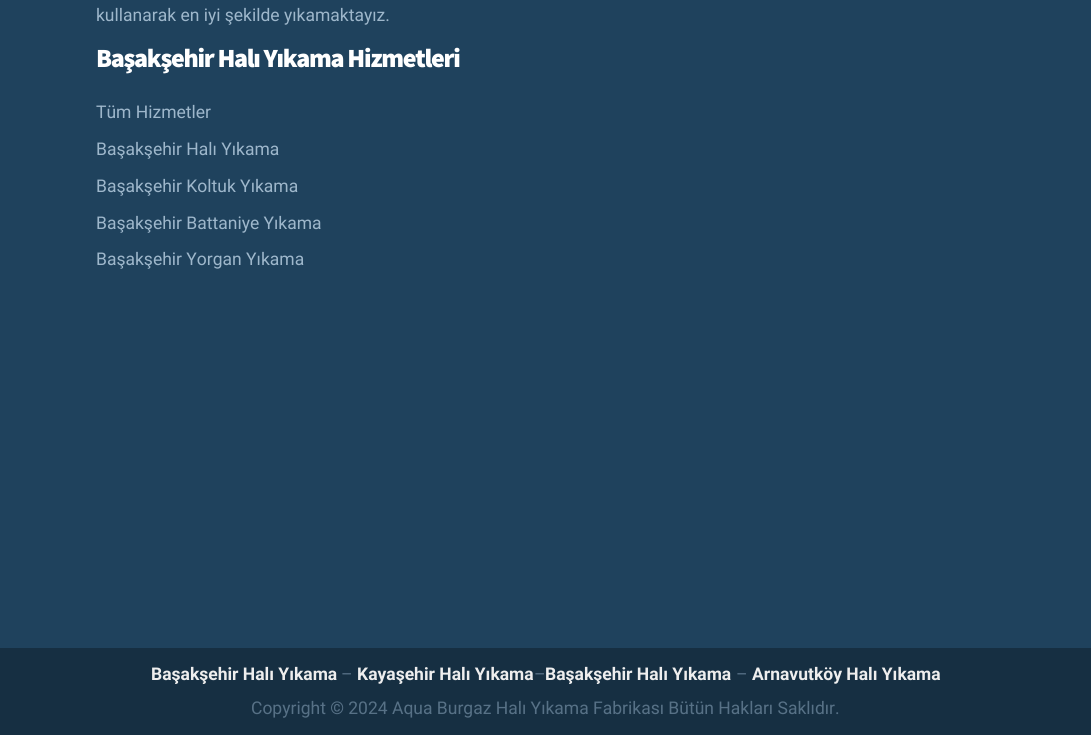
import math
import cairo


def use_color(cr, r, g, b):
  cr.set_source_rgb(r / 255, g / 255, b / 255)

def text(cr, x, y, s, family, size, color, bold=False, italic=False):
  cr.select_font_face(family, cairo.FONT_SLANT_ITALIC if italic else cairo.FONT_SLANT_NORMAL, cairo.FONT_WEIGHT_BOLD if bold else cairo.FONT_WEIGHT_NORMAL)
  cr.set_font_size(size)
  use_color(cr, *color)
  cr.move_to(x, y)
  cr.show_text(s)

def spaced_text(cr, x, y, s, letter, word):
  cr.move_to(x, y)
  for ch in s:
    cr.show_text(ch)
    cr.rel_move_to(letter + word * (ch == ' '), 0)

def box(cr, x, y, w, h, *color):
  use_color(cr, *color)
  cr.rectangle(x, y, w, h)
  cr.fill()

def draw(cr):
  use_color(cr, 22, 47, 66)
  cr.paint()
  box(cr, 0, 0, 1091, 648, 31, 66, 93)
  text(cr, 96, 21, "kullanarak en iyi şekilde yıkamaktayız.", "Roboto", 17.5, (158, 183, 203))
  cr.select_font_face("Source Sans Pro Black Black")
  cr.set_font_size(26.25)
  use_color(cr, 255, 255, 255)
  spaced_text(cr, 96, 67, "Başakşehir Halı Yıkama Hizmetleri", -1.3, 0)
  text(cr, 96, 118, "Tüm Hizmetler", "Roboto", 17.5, (158, 183, 203))
  text(cr, 96, 155, "Başakşehir Halı Yıkama", "Roboto", 17.5, (158, 183, 203))
  text(cr, 96, 192, "Başakşehir Koltuk Yıkama", "Roboto", 17.5, (158, 183, 203))
  text(cr, 96, 229, "Başakşehir Battaniye Yıkama", "Roboto", 17.5, (158, 183, 203))
  text(cr, 96, 265, "Başakşehir Yorgan Yıkama", "Roboto", 17.5, (158, 183, 203))
  text(cr, 151, 680, "Başakşehir Halı Yıkama", "Roboto", 17.5, (238, 238, 238), bold=True)
  text(cr, 341, 680, "–", "Roboto", 17.5, (87, 113, 134))
  text(cr, 357, 680, "Kayaşehir Halı Yıkama", "Roboto", 17.5, (238, 238, 238), bold=True)
  text(cr, 534, 680, "–", "Roboto", 17.5, (87, 113, 134))
  text(cr, 545, 680, "Başakşehir Halı Yıkama", "Roboto", 17.5, (238, 238, 238), bold=True)
  text(cr, 736, 680, "–", "Roboto", 17.5, (87, 113, 134))
  text(cr, 752, 680, "Arnavutköy Halı Yıkama", "Roboto", 17.5, (238, 238, 238), bold=True)
  text(cr, 251, 714, "Copyright © 2024 Aqua Burgaz Halı Yıkama Fabrikası Bütün Hakları Saklıdır.", "Roboto", 17.5, (87, 113, 134))


surface = cairo.ImageSurface(cairo.FORMAT_RGB24, 1091, 735)
cr = cairo.Context(surface)
options = cairo.FontOptions()
options.set_hint_metrics(cairo.HINT_METRICS_OFF)
options.set_hint_style(cairo.HINT_STYLE_NONE)
cr.set_font_options(options)
cr.set_miter_limit(4)
draw(cr)
surface.write_to_png("out.png")
